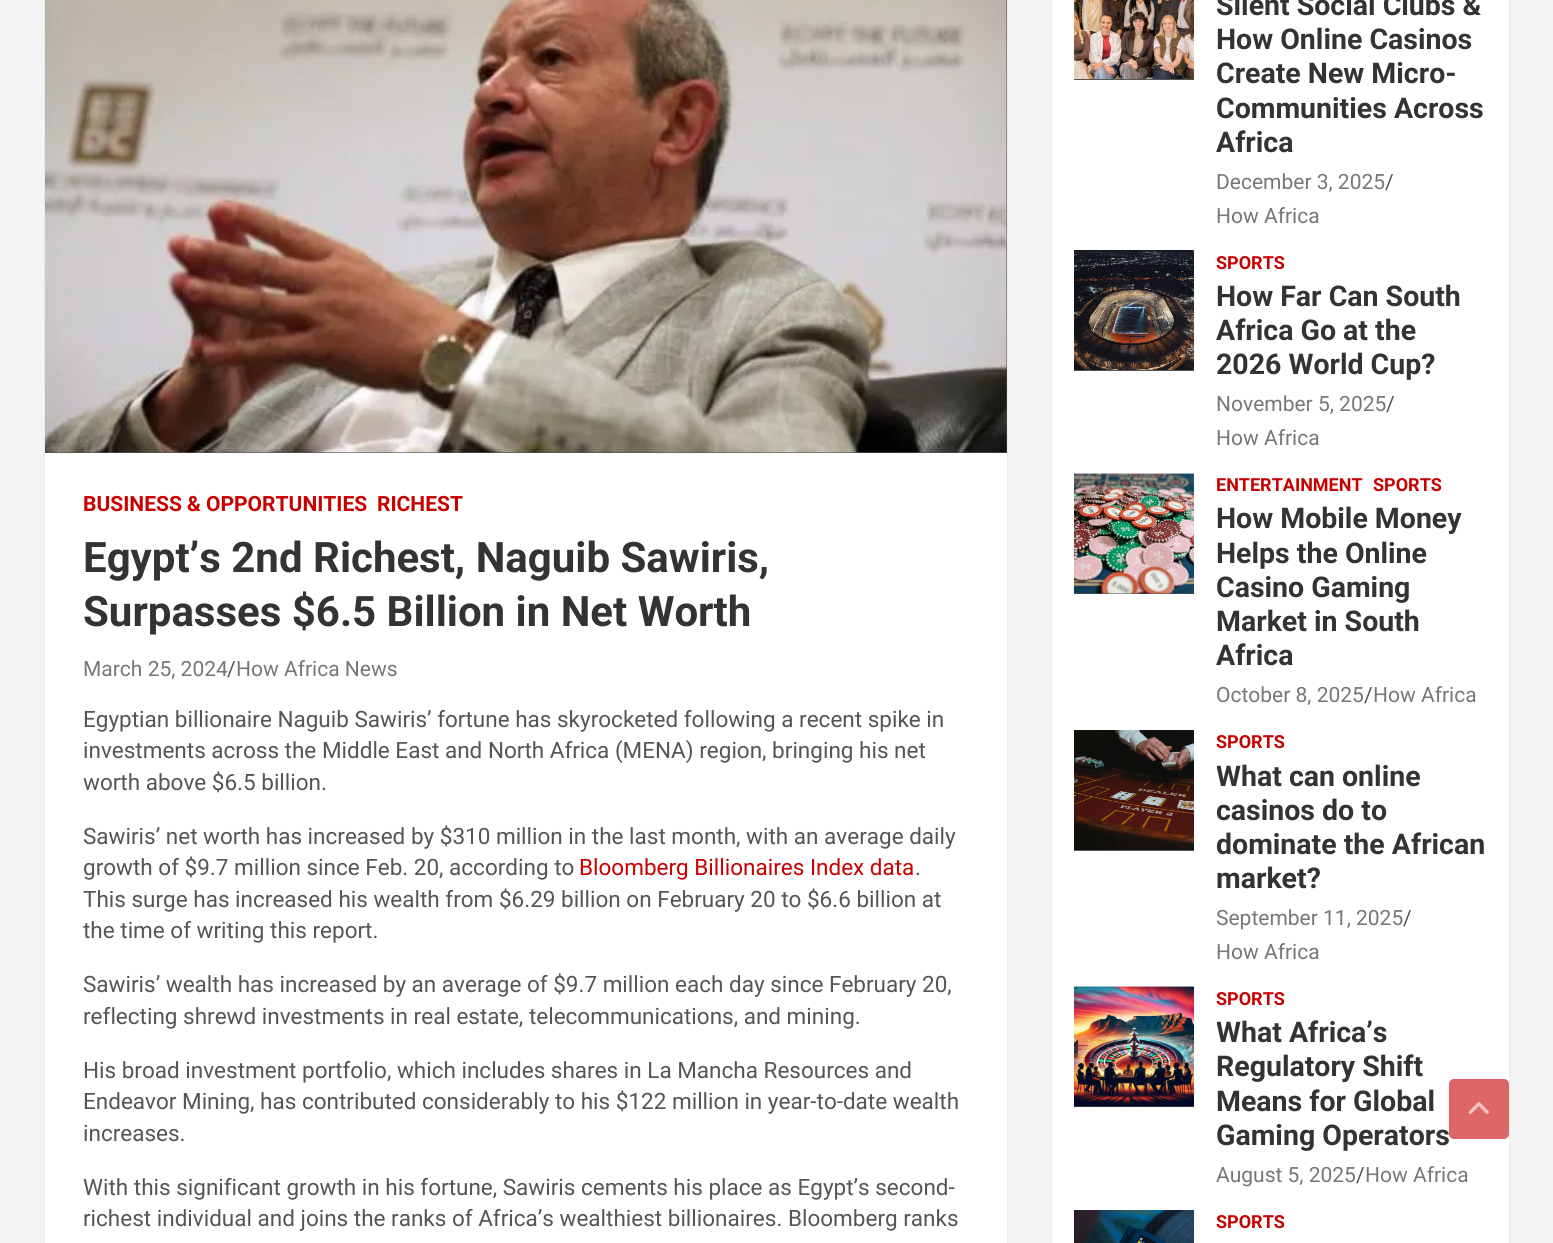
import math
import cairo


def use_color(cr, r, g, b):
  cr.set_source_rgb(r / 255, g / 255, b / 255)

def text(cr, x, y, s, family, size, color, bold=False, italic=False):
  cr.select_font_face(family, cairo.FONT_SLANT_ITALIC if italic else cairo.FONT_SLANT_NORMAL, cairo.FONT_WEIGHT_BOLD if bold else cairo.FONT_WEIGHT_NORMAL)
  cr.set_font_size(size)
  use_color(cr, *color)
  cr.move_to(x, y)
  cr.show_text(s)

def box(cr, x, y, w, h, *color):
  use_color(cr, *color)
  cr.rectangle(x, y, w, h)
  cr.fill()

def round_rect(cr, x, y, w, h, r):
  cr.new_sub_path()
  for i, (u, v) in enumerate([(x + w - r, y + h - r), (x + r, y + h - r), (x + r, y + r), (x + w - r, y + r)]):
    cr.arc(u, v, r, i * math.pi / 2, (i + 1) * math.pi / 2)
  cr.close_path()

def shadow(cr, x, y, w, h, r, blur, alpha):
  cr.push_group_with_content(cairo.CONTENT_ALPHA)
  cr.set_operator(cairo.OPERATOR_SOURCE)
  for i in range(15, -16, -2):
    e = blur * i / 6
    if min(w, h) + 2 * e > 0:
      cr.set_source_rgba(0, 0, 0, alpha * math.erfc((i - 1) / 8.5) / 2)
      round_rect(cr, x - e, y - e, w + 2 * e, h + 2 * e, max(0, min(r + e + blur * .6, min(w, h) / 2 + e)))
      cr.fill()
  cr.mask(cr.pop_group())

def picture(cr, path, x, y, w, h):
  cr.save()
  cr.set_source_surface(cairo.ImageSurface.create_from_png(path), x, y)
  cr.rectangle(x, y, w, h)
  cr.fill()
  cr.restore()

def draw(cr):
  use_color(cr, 244, 244, 244)
  cr.paint()
  use_color(cr, 0, 0, 0)
  shadow(cr, 45, -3, 962, 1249, 0, 1, 0.1)
  box(cr, 45, 453, 962, 790, 255, 255, 255)
  box(cr, 45, 0, 962, 453, 85, 85, 85)
  picture(cr, "img_01.png", 45, 0, 962, 453)
  use_color(cr, 0, 0, 0)
  shadow(cr, 1052, -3, 457, 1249, 0, 1, 0.1)
  box(cr, 1052, 0, 457, 1243, 255, 255, 255)
  box(cr, 1074, 79, 120, 1, 85, 85, 85)
  picture(cr, "img_02.png", 1074, 0, 120, 79)
  box(cr, 1074, 370, 120, 1, 85, 85, 85)
  picture(cr, "img_03.png", 1074, 250, 120, 120)
  box(cr, 1074, 593, 120, 1, 85, 85, 85)
  picture(cr, "img_04.png", 1074, 473, 120, 121)
  box(cr, 1074, 850, 120, 1, 85, 85, 85)
  picture(cr, "img_05.png", 1074, 730, 120, 120)
  box(cr, 1074, 1106, 120, 1, 85, 85, 85)
  picture(cr, "img_06.png", 1074, 986, 120, 121)
  picture(cr, "img_07.png", 1074, 1210, 120, 33)
  use_color(cr, 222, 102, 102)
  round_rect(cr, 1449, 1079, 60, 60, 5)
  cr.fill()
  picture(cr, "img_08.png", 1468, 1102, 21, 12)
  text(cr, 83, 511, "BUSINESS & OPPORTUNITIES", "Roboto", 21, (200, 0, 0), bold=True)
  text(cr, 377, 511, "RICHEST", "Roboto", 21, (200, 0, 0), bold=True)
  text(cr, 83, 572, "Egypt’s 2nd Richest, Naguib Sawiris,", "Roboto", 42, (51, 51, 51), bold=True)
  text(cr, 83, 626, "Surpasses $6.5 Billion in Net Worth", "Roboto", 42, (51, 51, 51), bold=True)
  text(cr, 83, 676, "March 25, 2024", "Roboto", 21, (119, 119, 119))
  text(cr, 227, 676, "/", "Roboto", 21, (85, 85, 85))
  text(cr, 236, 676, "How Africa News", "Roboto", 21, (119, 119, 119))
  text(cr, 83, 727, "Egyptian billionaire Naguib Sawiris’ fortune has skyrocketed following a recent spike in", "Roboto", 22.5, (85, 85, 85))
  text(cr, 83, 758, "investments across the Middle East and North Africa (MENA) region, bringing his net", "Roboto", 22.5, (85, 85, 85))
  text(cr, 83, 790, "worth above $6.5 billion.", "Roboto", 22.5, (85, 85, 85))
  text(cr, 83, 844, "Sawiris’ net worth has increased by $310 million in the last month, with an average daily", "Roboto", 22.5, (85, 85, 85))
  text(cr, 83, 875, "growth of $9.7 million since Feb. 20, according to", "Roboto", 22.5, (85, 85, 85))
  text(cr, 579, 875, "Bloomberg Billionaires Index data", "Roboto", 22.5, (200, 0, 0))
  text(cr, 915, 875, ".", "Roboto", 22.5, (85, 85, 85))
  text(cr, 83, 907, "This surge has increased his wealth from $6.29 billion on February 20 to $6.6 billion at", "Roboto", 22.5, (85, 85, 85))
  text(cr, 83, 938, "the time of writing this report.", "Roboto", 22.5, (85, 85, 85))
  text(cr, 83, 992, "Sawiris’ wealth has increased by an average of $9.7 million each day since February 20,", "Roboto", 22.5, (85, 85, 85))
  text(cr, 83, 1024, "reflecting shrewd investments in real estate, telecommunications, and mining.", "Roboto", 22.5, (85, 85, 85))
  text(cr, 83, 1078, "His broad investment portfolio, which includes shares in La Mancha Resources and", "Roboto", 22.5, (85, 85, 85))
  text(cr, 83, 1109, "Endeavor Mining, has contributed considerably to his $122 million in year-to-date wealth", "Roboto", 22.5, (85, 85, 85))
  text(cr, 83, 1141, "increases.", "Roboto", 22.5, (85, 85, 85))
  text(cr, 83, 1195, "With this significant growth in his fortune, Sawiris cements his place as Egypt’s second-", "Roboto", 22.5, (85, 85, 85))
  text(cr, 83, 1226, "richest individual and joins the ranks of Africa’s wealthiest billionaires. Bloomberg ranks", "Roboto", 22.5, (85, 85, 85))
  text(cr, 1216, 15, "Silent Social Clubs &", "Roboto", 28.5, (51, 51, 51), bold=True)
  text(cr, 1216, 49, "How Online Casinos", "Roboto", 28.5, (51, 51, 51), bold=True)
  text(cr, 1216, 83, "Create New Micro-", "Roboto", 28.5, (51, 51, 51), bold=True)
  text(cr, 1216, 118, "Communities Across", "Roboto", 28.5, (51, 51, 51), bold=True)
  text(cr, 1216, 152, "Africa", "Roboto", 28.5, (51, 51, 51), bold=True)
  text(cr, 1216, 189, "December 3, 2025", "Roboto", 21, (119, 119, 119))
  text(cr, 1385, 189, "/", "Roboto", 21, (85, 85, 85))
  text(cr, 1216, 223, "How Africa", "Roboto", 21, (119, 119, 119))
  text(cr, 1216, 269, "SPORTS", "Roboto", 18, (200, 0, 0), bold=True)
  text(cr, 1216, 306, "How Far Can South", "Roboto", 28.5, (51, 51, 51), bold=True)
  text(cr, 1216, 340, "Africa Go at the", "Roboto", 28.5, (51, 51, 51), bold=True)
  text(cr, 1216, 374, "2026 World Cup?", "Roboto", 28.5, (51, 51, 51), bold=True)
  text(cr, 1216, 411, "November 5, 2025", "Roboto", 21, (119, 119, 119))
  text(cr, 1386, 411, "/", "Roboto", 21, (85, 85, 85))
  text(cr, 1216, 445, "How Africa", "Roboto", 21, (119, 119, 119))
  text(cr, 1216, 491, "ENTERTAINMENT", "Roboto", 18, (200, 0, 0), bold=True)
  text(cr, 1373, 491, "SPORTS", "Roboto", 18, (200, 0, 0), bold=True)
  text(cr, 1216, 528, "How Mobile Money", "Roboto", 28.5, (51, 51, 51), bold=True)
  text(cr, 1216, 563, "Helps the Online", "Roboto", 28.5, (51, 51, 51), bold=True)
  text(cr, 1216, 597, "Casino Gaming", "Roboto", 28.5, (51, 51, 51), bold=True)
  text(cr, 1216, 631, "Market in South", "Roboto", 28.5, (51, 51, 51), bold=True)
  text(cr, 1216, 665, "Africa", "Roboto", 28.5, (51, 51, 51), bold=True)
  text(cr, 1216, 702, "October 8, 2025", "Roboto", 21, (119, 119, 119))
  text(cr, 1364, 702, "/", "Roboto", 21, (85, 85, 85))
  text(cr, 1373, 702, "How Africa", "Roboto", 21, (119, 119, 119))
  text(cr, 1216, 748, "SPORTS", "Roboto", 18, (200, 0, 0), bold=True)
  cr.save()
  cr.rectangle(1217, 731, 270, 256)
  cr.clip()
  text(cr, 1216, 786, "What can online", "Roboto", 28.5, (51, 51, 51), bold=True)
  cr.restore()
  text(cr, 1216, 820, "casinos do to", "Roboto", 28.5, (51, 51, 51), bold=True)
  text(cr, 1216, 854, "dominate the African", "Roboto", 28.5, (51, 51, 51), bold=True)
  text(cr, 1216, 888, "market?", "Roboto", 28.5, (51, 51, 51), bold=True)
  text(cr, 1216, 925, "September 11, 2025", "Roboto", 21, (119, 119, 119))
  text(cr, 1403, 925, "/", "Roboto", 21, (85, 85, 85))
  text(cr, 1216, 959, "How Africa", "Roboto", 21, (119, 119, 119))
  text(cr, 1216, 1005, "SPORTS", "Roboto", 18, (200, 0, 0), bold=True)
  cr.save()
  cr.rectangle(1217, 987, 270, 224)
  cr.clip()
  text(cr, 1216, 1042, "What Africa’s", "Roboto", 28.5, (51, 51, 51), bold=True)
  cr.restore()
  text(cr, 1216, 1076, "Regulatory Shift", "Roboto", 28.5, (51, 51, 51), bold=True)
  text(cr, 1216, 1111, "Means for Global", "Roboto", 28.5, (51, 51, 51), bold=True)
  text(cr, 1216, 1145, "Gaming Operators", "Roboto", 28.5, (51, 51, 51), bold=True)
  text(cr, 1216, 1182, "August 5, 2025", "Roboto", 21, (119, 119, 119))
  text(cr, 1356, 1182, "/", "Roboto", 21, (85, 85, 85))
  text(cr, 1365, 1182, "How Africa", "Roboto", 21, (119, 119, 119))
  text(cr, 1216, 1228, "SPORTS", "Roboto", 18, (200, 0, 0), bold=True)


surface = cairo.ImageSurface(cairo.FORMAT_RGB24, 1553, 1243)
cr = cairo.Context(surface)
options = cairo.FontOptions()
options.set_hint_metrics(cairo.HINT_METRICS_OFF)
options.set_hint_style(cairo.HINT_STYLE_NONE)
cr.set_font_options(options)
cr.set_miter_limit(4)
draw(cr)
surface.write_to_png("out.png")
